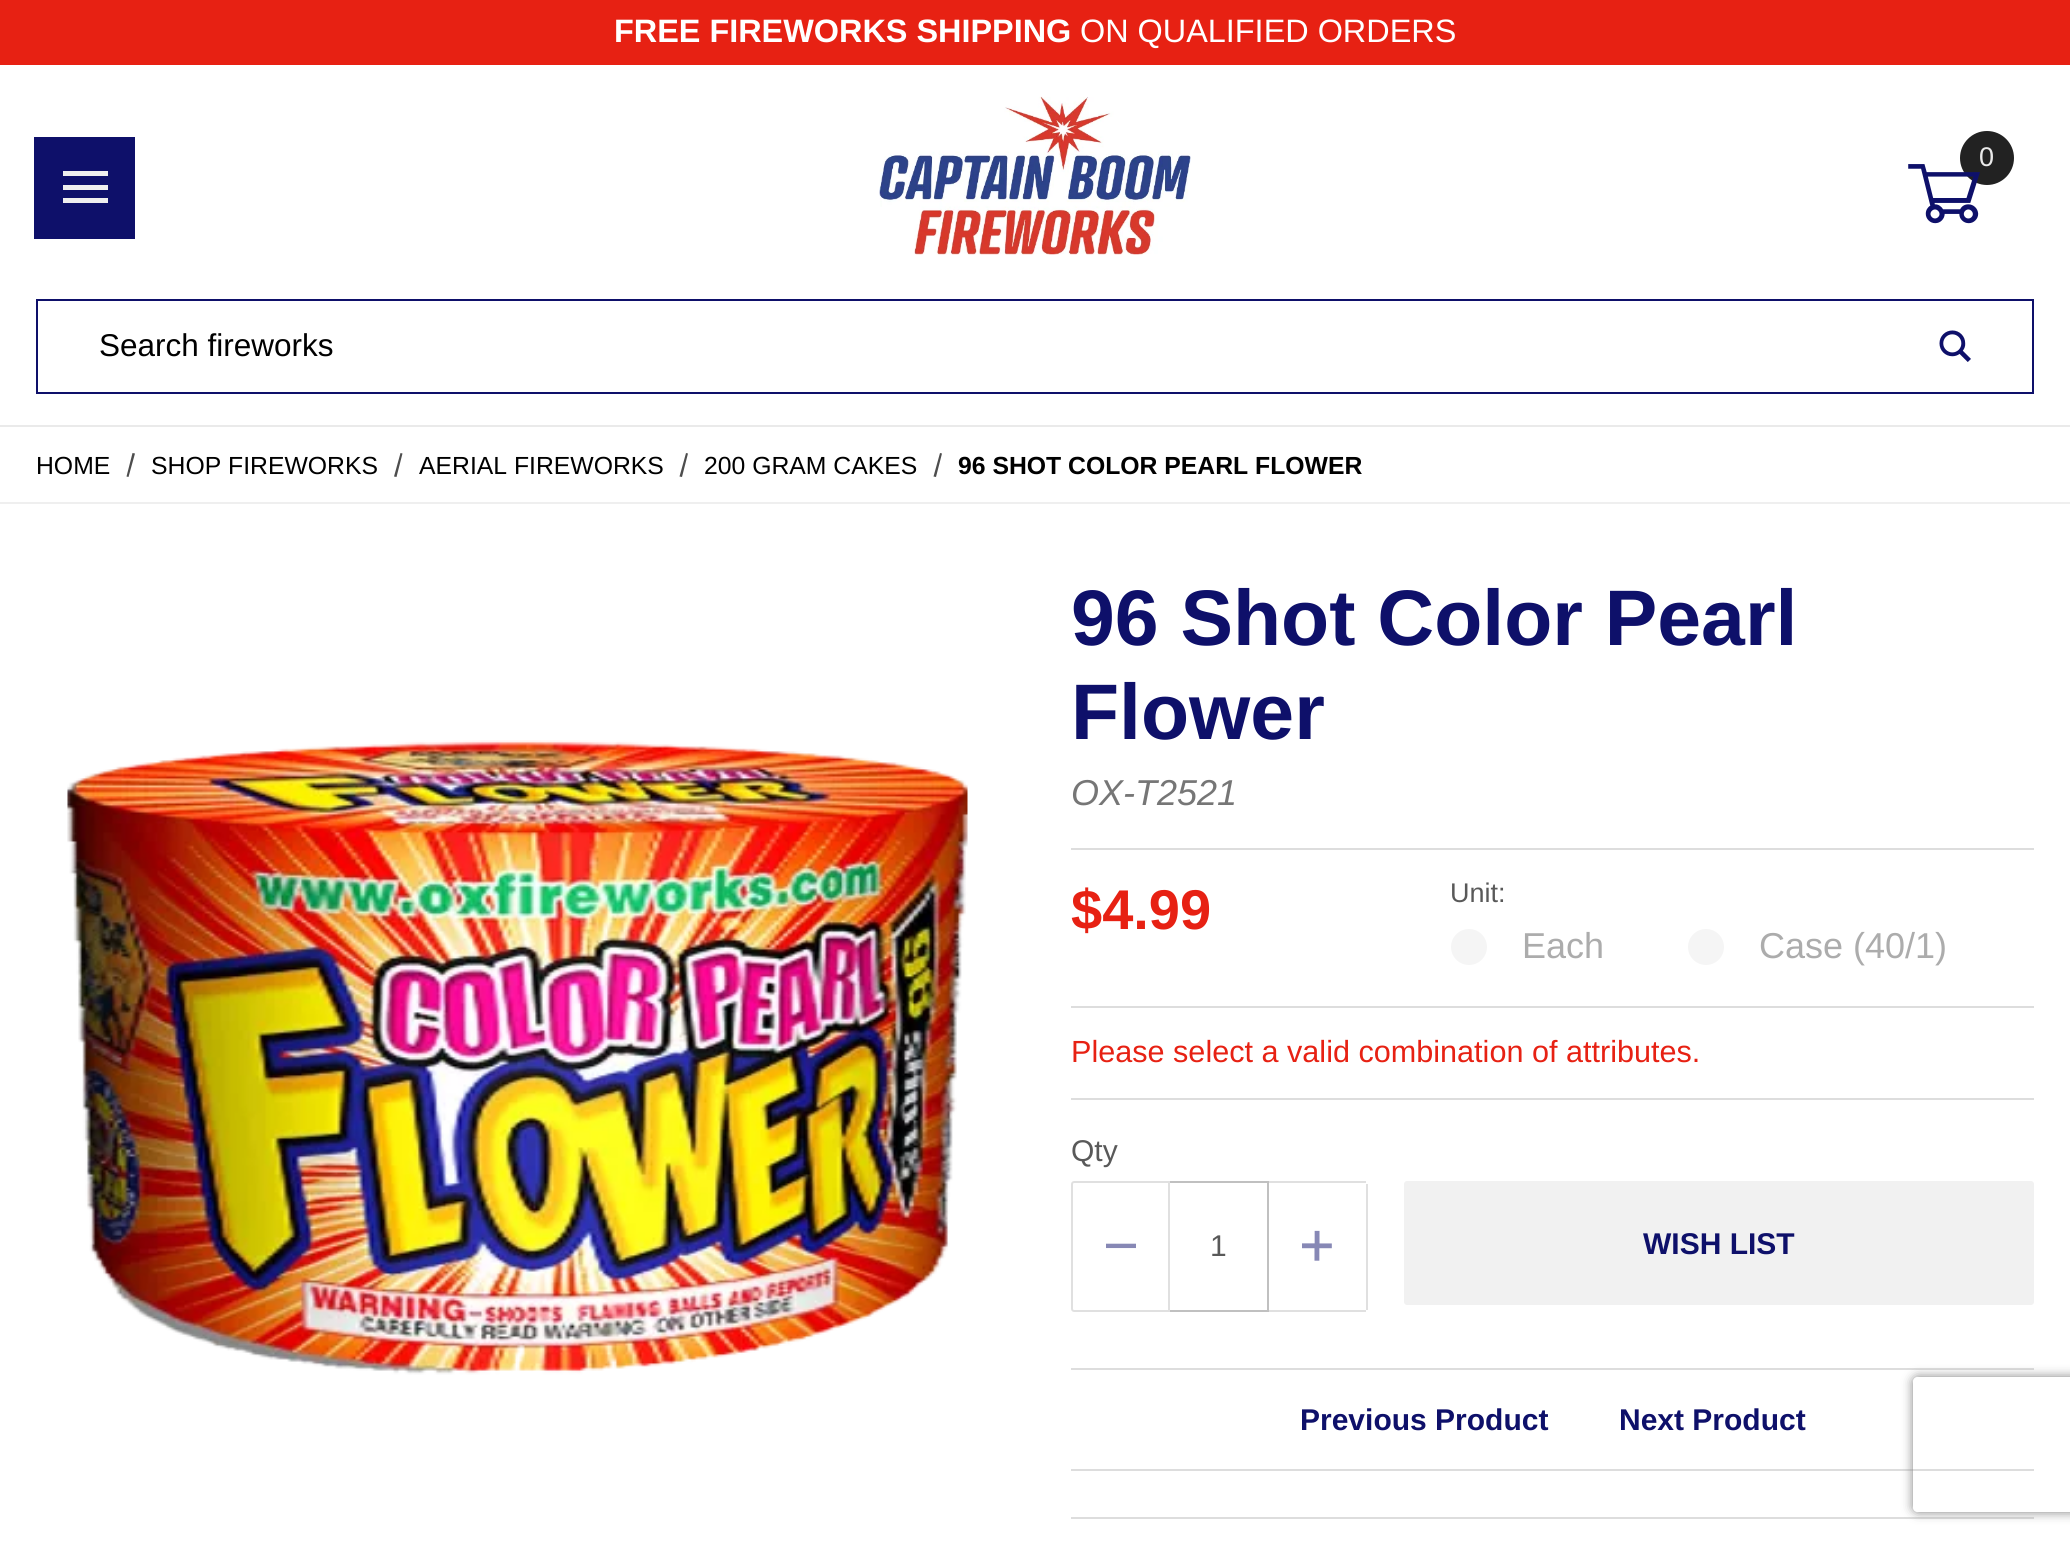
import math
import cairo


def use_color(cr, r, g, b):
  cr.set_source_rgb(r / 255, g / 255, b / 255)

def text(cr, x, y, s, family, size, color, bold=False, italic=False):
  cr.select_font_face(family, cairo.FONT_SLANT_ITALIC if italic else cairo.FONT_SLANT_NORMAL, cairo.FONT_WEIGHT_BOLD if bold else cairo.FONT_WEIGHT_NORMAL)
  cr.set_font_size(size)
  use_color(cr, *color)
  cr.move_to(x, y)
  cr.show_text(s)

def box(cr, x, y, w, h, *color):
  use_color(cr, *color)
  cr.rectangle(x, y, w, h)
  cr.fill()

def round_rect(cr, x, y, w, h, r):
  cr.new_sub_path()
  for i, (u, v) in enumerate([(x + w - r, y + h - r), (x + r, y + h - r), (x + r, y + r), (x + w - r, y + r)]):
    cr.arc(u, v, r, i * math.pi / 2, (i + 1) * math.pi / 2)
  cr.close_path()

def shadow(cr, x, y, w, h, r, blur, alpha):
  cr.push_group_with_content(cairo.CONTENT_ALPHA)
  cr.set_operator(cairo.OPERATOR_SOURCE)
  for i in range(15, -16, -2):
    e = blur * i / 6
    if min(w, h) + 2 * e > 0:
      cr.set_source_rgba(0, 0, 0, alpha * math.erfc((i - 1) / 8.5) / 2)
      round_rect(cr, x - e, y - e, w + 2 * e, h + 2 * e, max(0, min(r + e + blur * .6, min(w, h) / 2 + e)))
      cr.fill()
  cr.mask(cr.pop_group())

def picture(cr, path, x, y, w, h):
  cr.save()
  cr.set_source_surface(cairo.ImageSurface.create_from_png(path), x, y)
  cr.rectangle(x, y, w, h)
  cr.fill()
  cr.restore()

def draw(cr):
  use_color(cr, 255, 255, 255)
  cr.paint()
  box(cr, 34, 137, 101, 102, 14, 16, 106)
  box(cr, 63, 198, 45, 5, 239, 239, 239)
  box(cr, 63, 171, 45, 5, 239, 239, 239)
  box(cr, 63, 185, 45, 5, 239, 239, 239)
  box(cr, 0, 425, 2070, 2, 234, 234, 234)
  box(cr, 0, 0, 2070, 65, 231, 33, 19)
  picture(cr, "img_01.png", 879, 96, 312, 159)
  use_color(cr, 34, 34, 34)
  cr.arc(1987, 158, 27, 0, 2 * math.pi)
  cr.fill()
  picture(cr, "img_02.png", 1908, 164, 72, 60)
  cr.rectangle(37, 300, 1996, 93)
  use_color(cr, 14, 16, 106)
  cr.stroke()
  picture(cr, "img_03.png", 1939, 330, 32, 32)
  box(cr, 0, 502, 2070, 2, 239, 239, 239)
  use_color(cr, 77, 77, 77)
  cr.new_path()
  cr.move_to(132.5, 453)
  cr.line_to(135, 453.5)
  cr.line_to(128.5, 477)
  cr.line_to(126.5, 476.5)
  cr.close_path()
  cr.fill()
  cr.new_path()
  cr.move_to(400.5, 453)
  cr.line_to(402.5, 453.5)
  cr.line_to(396.5, 477)
  cr.line_to(394, 476.5)
  cr.close_path()
  cr.fill()
  cr.new_path()
  cr.move_to(686, 453)
  cr.line_to(688, 453.5)
  cr.line_to(682, 477)
  cr.line_to(679.5, 476.5)
  cr.close_path()
  cr.fill()
  cr.new_path()
  cr.move_to(940, 453)
  cr.line_to(942, 453.5)
  cr.line_to(936, 477)
  cr.line_to(933.5, 476.5)
  cr.close_path()
  cr.fill()
  picture(cr, "img_04.png", 67, 740, 901, 635)
  box(cr, 1071, 848, 963, 2, 221, 221, 221)
  box(cr, 1071, 1006, 963, 2, 221, 221, 221)
  use_color(cr, 245, 245, 245)
  cr.arc(1469, 947, 18, 0, 2 * math.pi)
  cr.fill()
  cr.arc(1706, 947, 18, 0, 2 * math.pi)
  cr.fill()
  box(cr, 1071, 1098, 963, 2, 221, 221, 221)
  box(cr, 1071, 1368, 963, 2, 221, 221, 221)
  cr.new_path()
  cr.move_to(1074, 1182)
  cr.line_to(1169, 1182)
  cr.line_to(1169, 1311)
  cr.line_to(1074, 1311)
  cr.curve_to(1073, 1311, 1072, 1310, 1072, 1309)
  cr.line_to(1072, 1184)
  cr.curve_to(1072, 1183, 1073, 1182, 1074, 1182)
  cr.close_path()
  use_color(cr, 224, 224, 224)
  cr.stroke()
  box(cr, 1170, 1181, 99, 2, 192, 192, 192)
  box(cr, 1267, 1181, 2, 131, 192, 192, 192)
  box(cr, 1170, 1310, 99, 2, 192, 192, 192)
  box(cr, 1269, 1181, 97, 2, 224, 224, 224)
  box(cr, 1366, 1184, 2, 126, 224, 224, 224)
  box(cr, 1269, 1310, 97, 2, 224, 224, 224)
  use_color(cr, 241, 241, 241)
  round_rect(cr, 1404, 1181, 630, 124, 3)
  cr.fill()
  box(cr, 1071, 1469, 963, 2, 221, 221, 221)
  box(cr, 1071, 1517, 963, 2, 221, 221, 221)
  cr.save()
  cr.set_fill_rule(cairo.FILL_RULE_EVEN_ODD)
  cr.new_path()
  cr.move_to(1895, 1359)
  cr.line_to(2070, 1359)
  cr.line_to(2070, 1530)
  cr.line_to(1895, 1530)
  cr.close_path()
  cr.move_to(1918, 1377)
  cr.line_to(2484, 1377)
  cr.curve_to(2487, 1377, 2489, 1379, 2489, 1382)
  cr.line_to(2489, 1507)
  cr.curve_to(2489, 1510, 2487, 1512, 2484, 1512)
  cr.line_to(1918, 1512)
  cr.curve_to(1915, 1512, 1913, 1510, 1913, 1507)
  cr.line_to(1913, 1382)
  cr.curve_to(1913, 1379, 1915, 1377, 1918, 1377)
  cr.close_path()
  cr.clip()
  use_color(cr, 128, 128, 128)
  shadow(cr, 1913, 1377, 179, 135, 5, 5.5, 1)
  cr.restore()
  text(cr, 614, 42, "FREE FIREWORKS SHIPPING", "Liberation Sans", 32.4, (255, 255, 255), bold=True)
  text(cr, 1080, 42, "ON QUALIFIED ORDERS", "Liberation Sans", 32.4, (255, 255, 255))
  text(cr, 1979, 166, "0", "Liberation Sans", 27, (234, 234, 234))
  text(cr, 99, 356, "Search fireworks", "Liberation Sans", 31.5, (0, 0, 0))
  text(cr, 36, 474, "HOME", "Liberation Sans", 24.75, (0, 0, 0))
  text(cr, 151, 474, "SHOP FIREWORKS", "Liberation Sans", 24.75, (0, 0, 0))
  text(cr, 419, 474, "AERIAL FIREWORKS", "Liberation Sans", 24.75, (0, 0, 0))
  text(cr, 704, 474, "200 GRAM CAKES", "Liberation Sans", 24.75, (0, 0, 0))
  text(cr, 958, 474, "96 SHOT COLOR PEARL FLOWER", "Liberation Sans", 24.75, (0, 0, 0), bold=True)
  text(cr, 1071, 645, "96 Shot Color Pearl", "Liberation Sans", 78.75, (14, 16, 106), bold=True)
  text(cr, 1071, 739, "Flower", "Liberation Sans", 78.75, (14, 16, 106), bold=True)
  text(cr, 1071, 805, "OX-T2521", "Liberation Sans", 36, (118, 118, 118), italic=True)
  text(cr, 1071, 929, "$4.99", "Liberation Sans", 56, (231, 33, 19), bold=True)
  text(cr, 1450, 902, "Unit:", "Liberation Sans", 27, (89, 89, 89))
  text(cr, 1522, 958, "Each", "Liberation Sans", 36, (172, 172, 172))
  text(cr, 1759, 958, "Case (40/1)", "Liberation Sans", 36, (172, 172, 172))
  text(cr, 1071, 1062, "Please select a valid combination of attributes.", "Liberation Sans", 30.6, (231, 33, 19))
  text(cr, 1071, 1161, "Qty", "Liberation Sans", 30, (89, 89, 89))
  text(cr, 1106, 1259, "<", "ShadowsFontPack", 30, (135, 136, 181))
  text(cr, 1210, 1256, "1", "Liberation Sans", 30, (89, 89, 89))
  text(cr, 1302, 1259, "=", "ShadowsFontPack", 30, (135, 136, 181))
  text(cr, 1643, 1254, "WISH LIST", "Liberation Sans", 30, (14, 16, 106), bold=True)
  text(cr, 1300, 1430, "Previous Product", "Liberation Sans", 30, (14, 16, 106), bold=True)
  text(cr, 1619, 1430, "Next Product", "Liberation Sans", 30, (14, 16, 106), bold=True)


surface = cairo.ImageSurface(cairo.FORMAT_RGB24, 2070, 1542)
cr = cairo.Context(surface)
options = cairo.FontOptions()
options.set_hint_metrics(cairo.HINT_METRICS_OFF)
options.set_hint_style(cairo.HINT_STYLE_NONE)
cr.set_font_options(options)
cr.set_miter_limit(4)
draw(cr)
surface.write_to_png("out.png")
